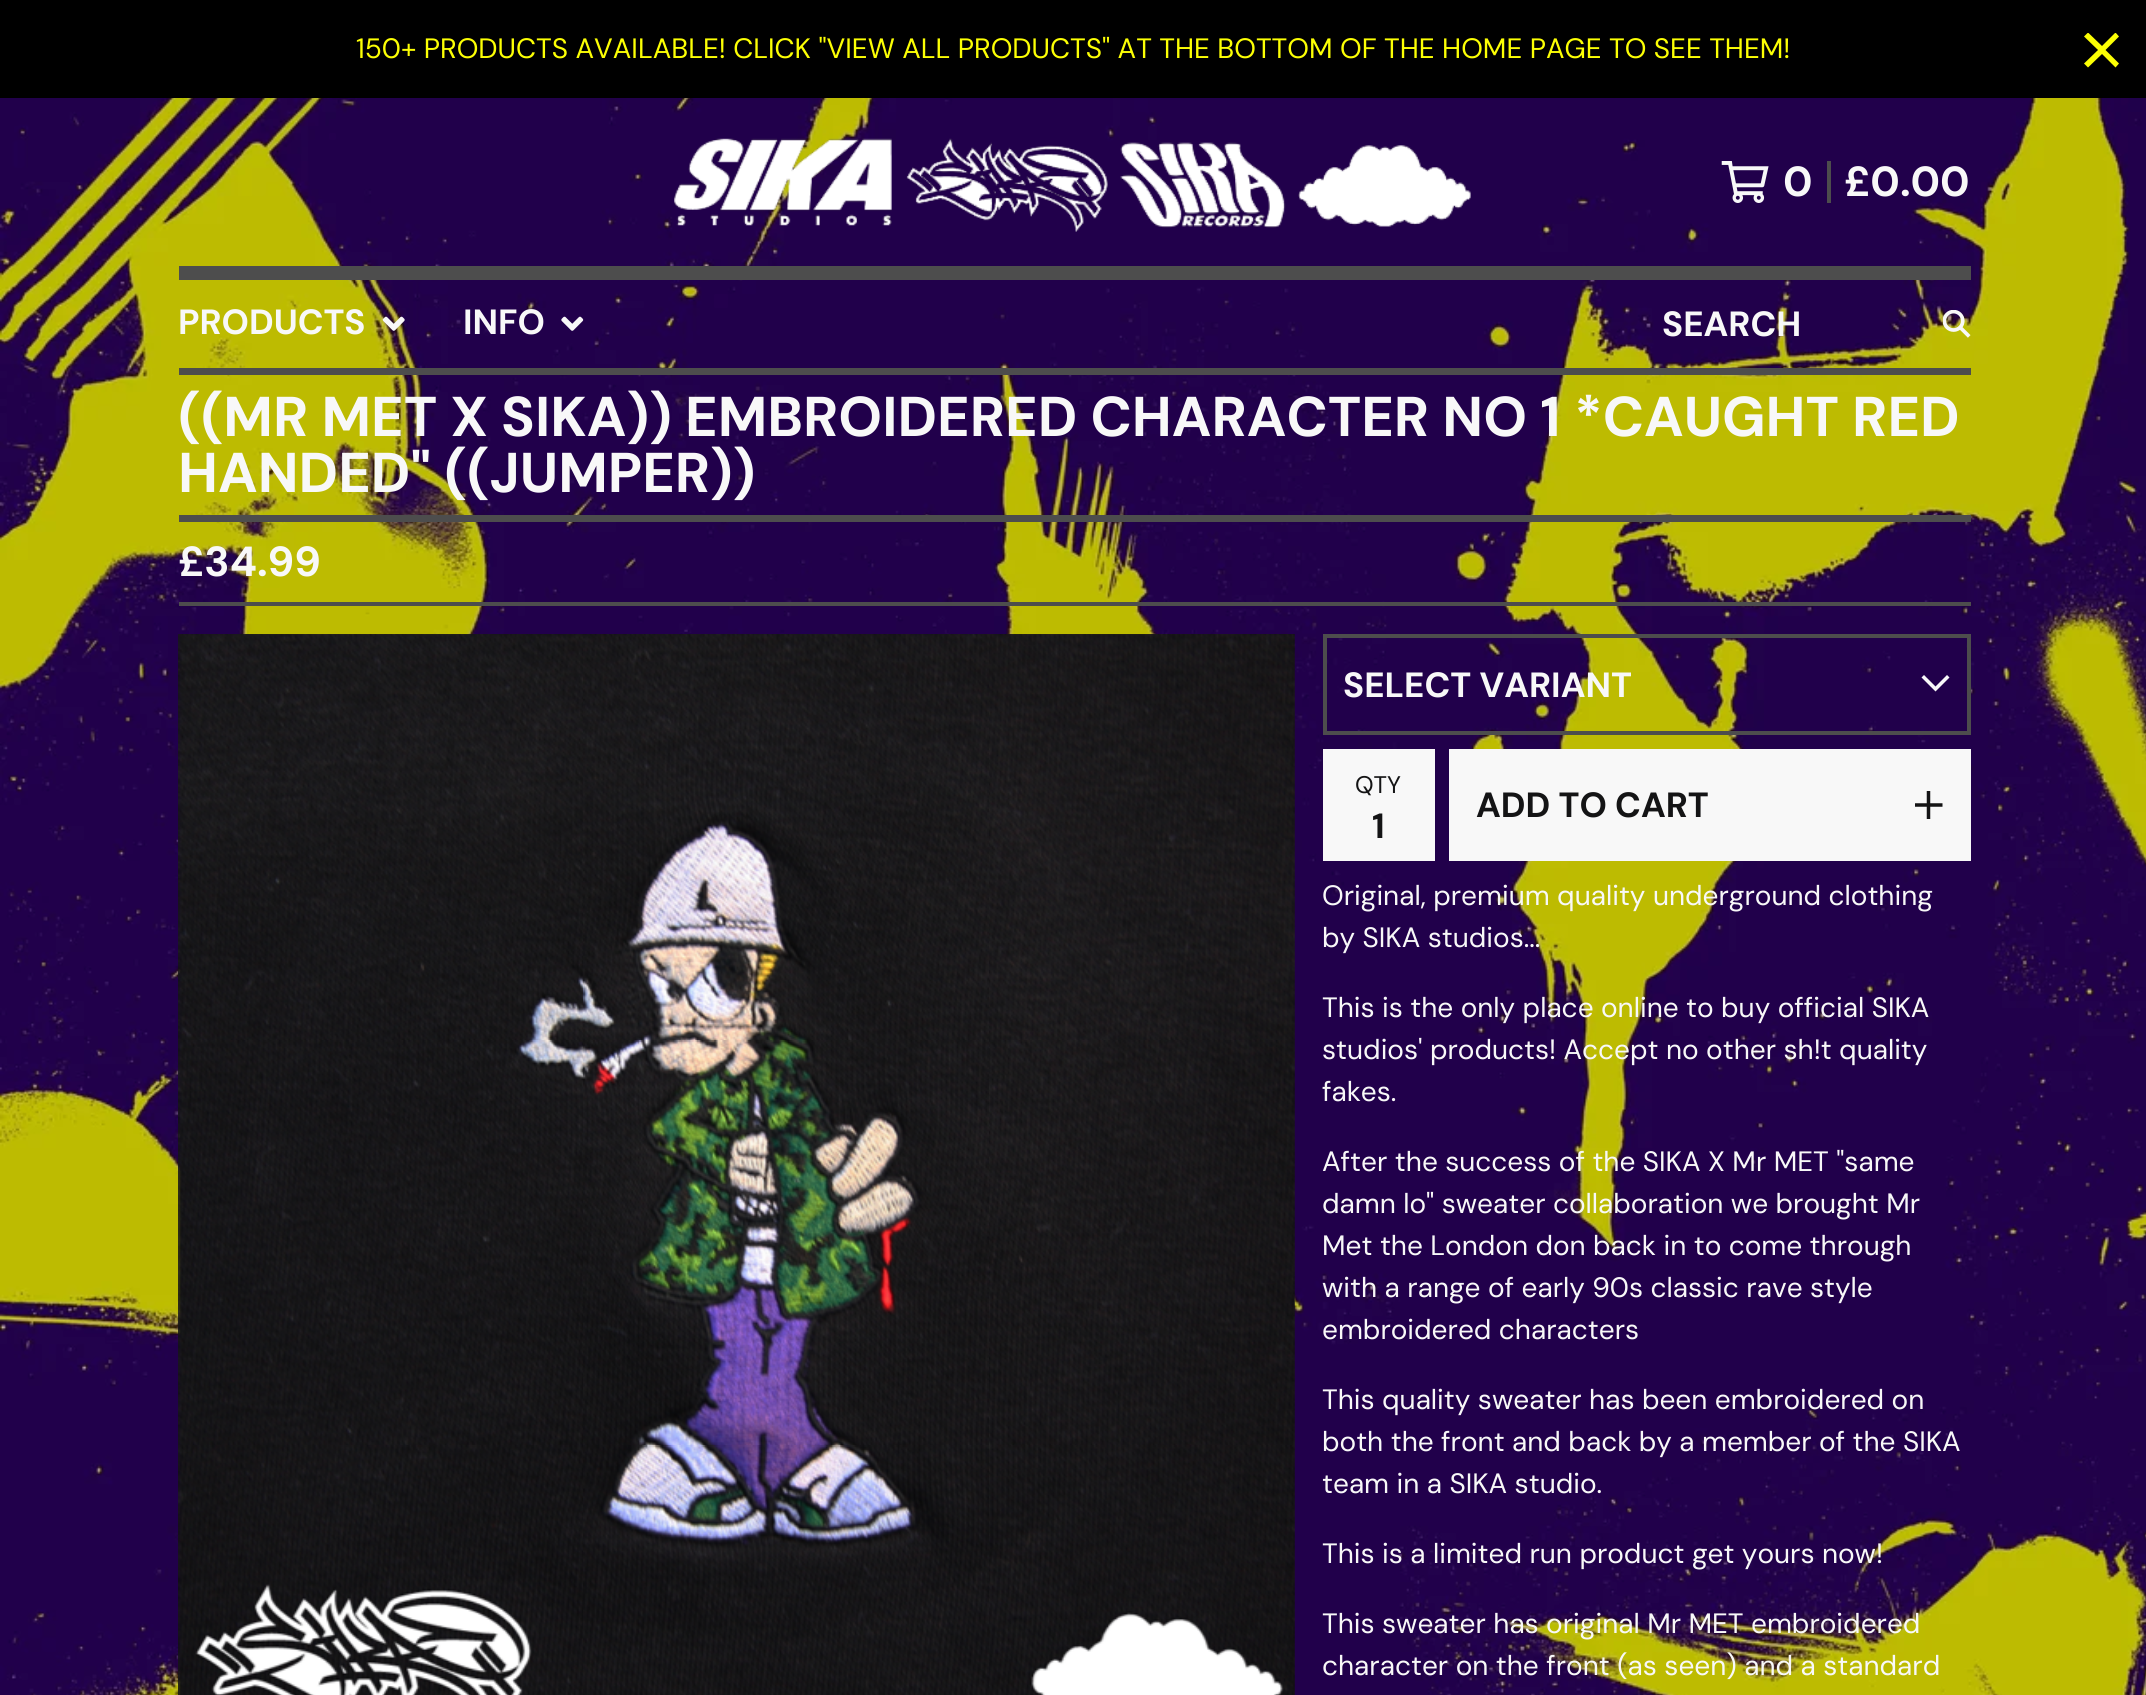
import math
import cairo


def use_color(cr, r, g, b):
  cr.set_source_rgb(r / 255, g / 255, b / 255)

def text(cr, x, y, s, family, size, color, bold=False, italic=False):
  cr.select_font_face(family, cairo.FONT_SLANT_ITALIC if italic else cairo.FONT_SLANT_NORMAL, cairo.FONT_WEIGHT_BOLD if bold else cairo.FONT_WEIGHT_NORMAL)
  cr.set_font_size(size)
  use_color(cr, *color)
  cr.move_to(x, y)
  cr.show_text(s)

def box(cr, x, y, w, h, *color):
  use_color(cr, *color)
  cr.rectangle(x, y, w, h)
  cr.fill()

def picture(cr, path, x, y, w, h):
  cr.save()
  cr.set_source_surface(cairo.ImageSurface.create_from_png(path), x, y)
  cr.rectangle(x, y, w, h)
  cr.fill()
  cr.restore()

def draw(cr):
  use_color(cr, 255, 255, 255)
  cr.paint()
  picture(cr, "img_01.png", 0, 98, 2146, 1597)
  box(cr, 0, 0, 2146, 98, 0, 0, 0)
  cr.save()
  cr.rectangle(2084, 33, 35, 35)
  cr.clip()
  use_color(cr, 252, 255, 4)
  cr.set_fill_rule(cairo.FILL_RULE_EVEN_ODD)
  cr.new_path()
  cr.move_to(2115.5, 32.5)
  cr.line_to(2119, 36.5)
  cr.line_to(2105.5, 50)
  cr.line_to(2119, 63.5)
  cr.line_to(2115.5, 67.5)
  cr.line_to(2102, 54)
  cr.line_to(2088, 67.5)
  cr.line_to(2084, 63.5)
  cr.line_to(2098, 50)
  cr.line_to(2084, 36.5)
  cr.line_to(2088, 32.5)
  cr.line_to(2102, 46)
  cr.close_path()
  cr.fill()
  cr.restore()
  box(cr, 179, 266, 1792, 14, 77, 77, 77)
  picture(cr, "img_02.png", 674, 138, 797, 94)
  picture(cr, "img_03.png", 1721, 161, 48, 42)
  box(cr, 1827, 161, 4, 42, 77, 77, 77)
  box(cr, 179, 368, 1792, 7, 77, 77, 77)
  picture(cr, "img_04.png", 382, 316, 23, 15)
  picture(cr, "img_05.png", 561, 316, 23, 15)
  picture(cr, "img_06.png", 1943, 310, 28, 28)
  box(cr, 179, 515, 1792, 7, 77, 77, 77)
  box(cr, 179, 602, 1792, 4, 77, 77, 77)
  picture(cr, "img_07.png", 178, 634, 1117, 1061)
  use_color(cr, 248, 248, 248)
  cr.set_fill_rule(cairo.FILL_RULE_EVEN_ODD)
  cr.new_path()
  cr.move_to(1935.5, 691.5)
  cr.line_to(1921.5, 677.5)
  cr.line_to(1924, 675)
  cr.line_to(1935.5, 686.5)
  cr.line_to(1947, 675)
  cr.line_to(1949.5, 677.5)
  cr.close_path()
  cr.fill()
  cr.rectangle(1325, 636, 644, 97)
  use_color(cr, 77, 77, 77)
  cr.set_line_width(4)
  cr.stroke()
  box(cr, 1323, 749, 112, 112, 248, 248, 248)
  box(cr, 1449, 749, 522, 112, 248, 248, 248)
  picture(cr, "img_08.png", 1915, 791, 28, 28)
  text(cr, 356, 58, "150+ PRODUCTS AVAILABLE! CLICK \"VIEW ALL PRODUCTS\" AT THE BOTTOM OF THE HOME PAGE TO SEE THEM!", "DM Sans", 28, (252, 255, 4))
  text(cr, 1783, 196, "0", "DM Sans", 42, (248, 248, 248), bold=True)
  text(cr, 1844, 196, "£0.00", "DM Sans", 42, (248, 248, 248), bold=True)
  text(cr, 178, 334, "PRODUCTS", "DM Sans", 35, (248, 248, 248), bold=True)
  text(cr, 463, 334, "INFO", "DM Sans", 35, (248, 248, 248), bold=True)
  text(cr, 1662, 336, "SEARCH", "DM Sans", 35, (248, 248, 248), bold=True)
  text(cr, 178, 436, "((MR MET X SIKA)) EMBROIDERED CHARACTER NO 1 *CAUGHT RED", "DM Sans", 56, (248, 248, 248), bold=True)
  text(cr, 178, 492, "HANDED\" ((JUMPER))", "DM Sans", 56, (248, 248, 248), bold=True)
  text(cr, 178, 576, "£34.99", "DM Sans", 42, (248, 248, 248), bold=True)
  text(cr, 1343, 697, "SELECT VARIANT", "DM Sans", 35, (248, 248, 248), bold=True)
  text(cr, 1355, 793, "QTY", "DM Sans", 24, (20, 20, 21))
  text(cr, 1372, 838, "1", "DM Sans", 35, (20, 20, 21), bold=True)
  text(cr, 1476, 817, "ADD TO CART", "DM Sans", 35, (20, 20, 21), bold=True)
  text(cr, 1322, 905, "Original, premium quality underground clothing", "DM Sans", 28, (248, 248, 248))
  text(cr, 1322, 947, "by SIKA studios...", "DM Sans", 28, (248, 248, 248))
  text(cr, 1322, 1017, "This is the only place online to buy official SIKA", "DM Sans", 28, (248, 248, 248))
  text(cr, 1322, 1059, "studios' products! Accept no other sh!t quality", "DM Sans", 28, (248, 248, 248))
  text(cr, 1322, 1101, "fakes.", "DM Sans", 28, (248, 248, 248))
  text(cr, 1322, 1171, "After the success of the SIKA X Mr MET \"same", "DM Sans", 28, (248, 248, 248))
  text(cr, 1322, 1213, "damn lo\" sweater collaboration we brought Mr", "DM Sans", 28, (248, 248, 248))
  text(cr, 1322, 1255, "Met the London don back in to come through", "DM Sans", 28, (248, 248, 248))
  text(cr, 1322, 1297, "with a range of early 90s classic rave style", "DM Sans", 28, (248, 248, 248))
  text(cr, 1322, 1339, "embroidered characters", "DM Sans", 28, (248, 248, 248))
  text(cr, 1322, 1409, "This quality sweater has been embroidered on", "DM Sans", 28, (248, 248, 248))
  text(cr, 1322, 1451, "both the front and back by a member of the SIKA", "DM Sans", 28, (248, 248, 248))
  text(cr, 1322, 1493, "team in a SIKA studio.", "DM Sans", 28, (248, 248, 248))
  text(cr, 1322, 1563, "This is a limited run product get yours now!", "DM Sans", 28, (248, 248, 248))
  text(cr, 1322, 1633, "This sweater has original Mr MET embroidered", "DM Sans", 28, (248, 248, 248))
  text(cr, 1322, 1675, "character on the front (as seen) and a standard", "DM Sans", 28, (248, 248, 248))


surface = cairo.ImageSurface(cairo.FORMAT_RGB24, 2146, 1695)
cr = cairo.Context(surface)
options = cairo.FontOptions()
options.set_hint_metrics(cairo.HINT_METRICS_OFF)
options.set_hint_style(cairo.HINT_STYLE_NONE)
cr.set_font_options(options)
cr.set_miter_limit(4)
draw(cr)
surface.write_to_png("out.png")
